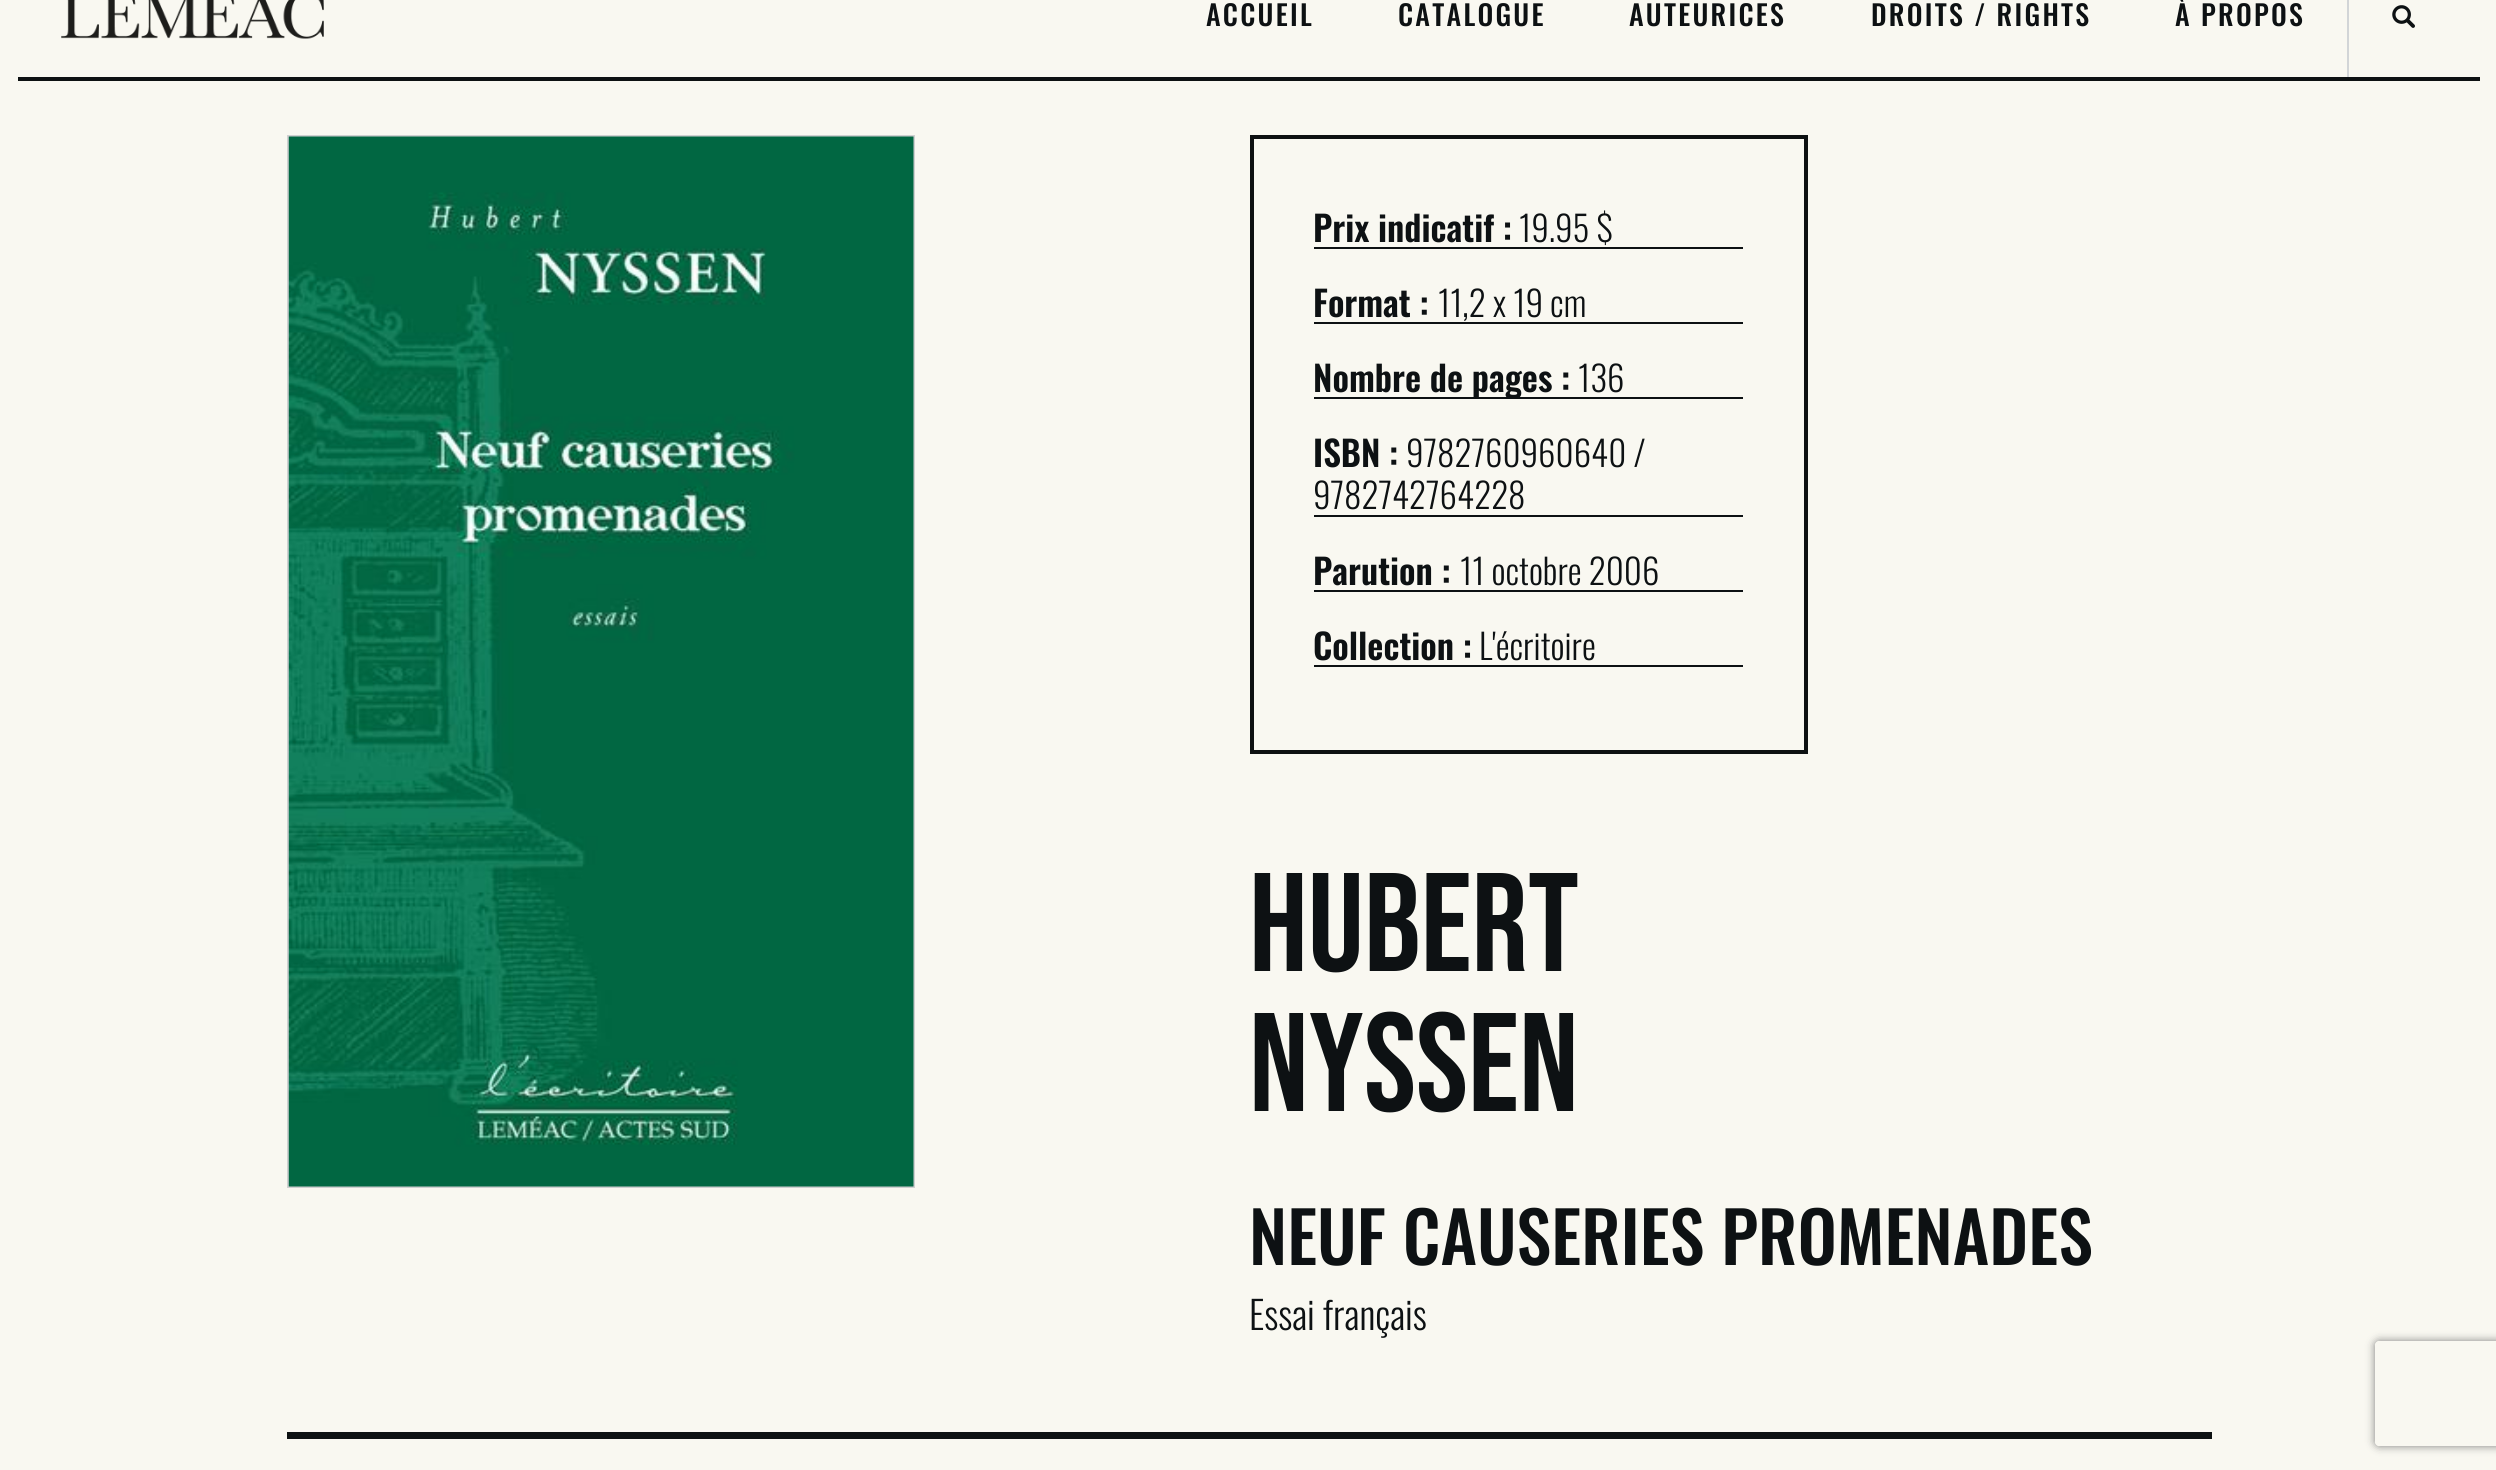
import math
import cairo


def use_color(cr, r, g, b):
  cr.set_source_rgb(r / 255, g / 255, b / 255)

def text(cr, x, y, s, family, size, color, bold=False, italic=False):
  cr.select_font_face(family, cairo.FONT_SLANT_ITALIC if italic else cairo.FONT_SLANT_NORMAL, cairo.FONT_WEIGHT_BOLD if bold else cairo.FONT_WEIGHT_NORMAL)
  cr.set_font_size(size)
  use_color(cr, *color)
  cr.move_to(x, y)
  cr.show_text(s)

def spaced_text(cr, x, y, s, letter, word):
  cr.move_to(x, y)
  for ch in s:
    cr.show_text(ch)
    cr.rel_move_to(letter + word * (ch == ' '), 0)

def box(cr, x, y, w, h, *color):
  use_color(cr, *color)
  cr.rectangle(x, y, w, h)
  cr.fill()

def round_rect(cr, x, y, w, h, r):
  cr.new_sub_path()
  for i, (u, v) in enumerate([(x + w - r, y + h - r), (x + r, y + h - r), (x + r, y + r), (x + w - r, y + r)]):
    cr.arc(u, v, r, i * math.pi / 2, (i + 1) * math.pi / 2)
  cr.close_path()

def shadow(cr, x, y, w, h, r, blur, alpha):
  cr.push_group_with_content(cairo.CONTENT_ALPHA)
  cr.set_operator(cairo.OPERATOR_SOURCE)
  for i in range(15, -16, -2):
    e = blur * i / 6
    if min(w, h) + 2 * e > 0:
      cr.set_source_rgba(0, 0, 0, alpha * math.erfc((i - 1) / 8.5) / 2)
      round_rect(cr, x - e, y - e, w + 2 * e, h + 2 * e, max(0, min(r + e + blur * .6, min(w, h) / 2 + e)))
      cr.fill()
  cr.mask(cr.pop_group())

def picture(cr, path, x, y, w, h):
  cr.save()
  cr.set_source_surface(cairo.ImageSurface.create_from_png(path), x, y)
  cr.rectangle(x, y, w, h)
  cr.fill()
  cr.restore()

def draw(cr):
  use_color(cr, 249, 248, 241)
  cr.paint()
  box(cr, 18, 77, 2462, 4, 13, 17, 18)
  picture(cr, "img_01.png", 61, 0, 263, 39)
  box(cr, 2347, 0, 2, 77, 210, 213, 215)
  picture(cr, "img_02.png", 2392, 5, 23, 23)
  cr.rectangle(288, 136, 626, 1051)
  use_color(cr, 208, 208, 209)
  cr.stroke()
  picture(cr, "img_03.png", 288, 136, 626, 1051)
  cr.rectangle(1252, 137, 554, 615)
  use_color(cr, 13, 17, 18)
  cr.set_line_width(4)
  cr.stroke()
  box(cr, 1314, 247, 429, 2, 13, 17, 19)
  box(cr, 1314, 322, 429, 2, 13, 17, 19)
  box(cr, 1314, 397, 429, 2, 13, 17, 19)
  box(cr, 1314, 515, 429, 2, 13, 17, 19)
  box(cr, 1314, 590, 429, 2, 13, 17, 19)
  box(cr, 1314, 665, 429, 2, 13, 17, 19)
  box(cr, 287, 1432, 1925, 7, 13, 17, 18)
  cr.save()
  cr.set_fill_rule(cairo.FILL_RULE_EVEN_ODD)
  cr.new_path()
  cr.move_to(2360, 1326)
  cr.line_to(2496, 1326)
  cr.line_to(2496, 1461)
  cr.line_to(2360, 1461)
  cr.close_path()
  cr.move_to(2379, 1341)
  cr.line_to(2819, 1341)
  cr.curve_to(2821, 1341, 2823, 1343, 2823, 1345)
  cr.line_to(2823, 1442)
  cr.curve_to(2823, 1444, 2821, 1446, 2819, 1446)
  cr.line_to(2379, 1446)
  cr.curve_to(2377, 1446, 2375, 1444, 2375, 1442)
  cr.line_to(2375, 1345)
  cr.curve_to(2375, 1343, 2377, 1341, 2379, 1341)
  cr.close_path()
  cr.clip()
  use_color(cr, 128, 128, 128)
  shadow(cr, 2375, 1341, 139, 105, 4, 4.5, 1)
  cr.restore()
  cr.select_font_face("Oswald Medium")
  cr.set_font_size(28)
  use_color(cr, 13, 17, 19)
  spaced_text(cr, 1206, 26, "ACCUEIL", 2.25, 0)
  spaced_text(cr, 1398, 26, "CATALOGUE", 2.25, 0)
  spaced_text(cr, 1629, 26, "AUTEURICES", 2.25, 0)
  spaced_text(cr, 1871, 26, "DROITS / RIGHTS", 2.25, 0)
  spaced_text(cr, 2175, 26, "À PROPOS", 2.25, 0)
  text(cr, 1313, 242, "Prix indicatif :", "Oswald SemiBold", 35, (13, 17, 19))
  text(cr, 1519, 242, "19.95 $", "Oswald Light", 35, (13, 17, 19))
  text(cr, 1313, 317, "Format :", "Oswald SemiBold", 35, (13, 17, 19))
  text(cr, 1438, 317, "11,2 x 19 cm", "Oswald Light", 35, (13, 17, 19))
  text(cr, 1313, 392, "Nombre de pages :", "Oswald SemiBold", 35, (13, 17, 19))
  text(cr, 1578, 392, "136", "Oswald Light", 35, (13, 17, 19))
  text(cr, 1313, 467, "ISBN :", "Oswald SemiBold", 35, (13, 17, 19))
  text(cr, 1406, 467, "9782760960640 /", "Oswald Light", 35, (13, 17, 19))
  text(cr, 1313, 509, "9782742764228", "Oswald Light", 35, (13, 17, 19))
  text(cr, 1313, 585, "Parution :", "Oswald SemiBold", 35, (13, 17, 19))
  text(cr, 1460, 585, "11 octobre 2006", "Oswald Light", 35, (13, 17, 19))
  text(cr, 1313, 660, "Collection :", "Oswald SemiBold", 35, (13, 17, 19))
  text(cr, 1479, 660, "L'écritoire", "Oswald Light", 35, (13, 17, 19))
  text(cr, 1249, 971, "Hubert", "Bebas Neue", 140, (13, 17, 19))
  text(cr, 1249, 1111, "Nyssen", "Bebas Neue", 140, (13, 17, 19))
  text(cr, 1249, 1265, "NEUF CAUSERIES PROMENADES", "Oswald Medium", 70, (13, 17, 19))
  text(cr, 1249, 1330, "Essai français", "Oswald Light", 38.5, (13, 17, 19))


surface = cairo.ImageSurface(cairo.FORMAT_RGB24, 2496, 1470)
cr = cairo.Context(surface)
options = cairo.FontOptions()
options.set_hint_metrics(cairo.HINT_METRICS_OFF)
options.set_hint_style(cairo.HINT_STYLE_NONE)
cr.set_font_options(options)
cr.set_miter_limit(4)
draw(cr)
surface.write_to_png("out.png")
